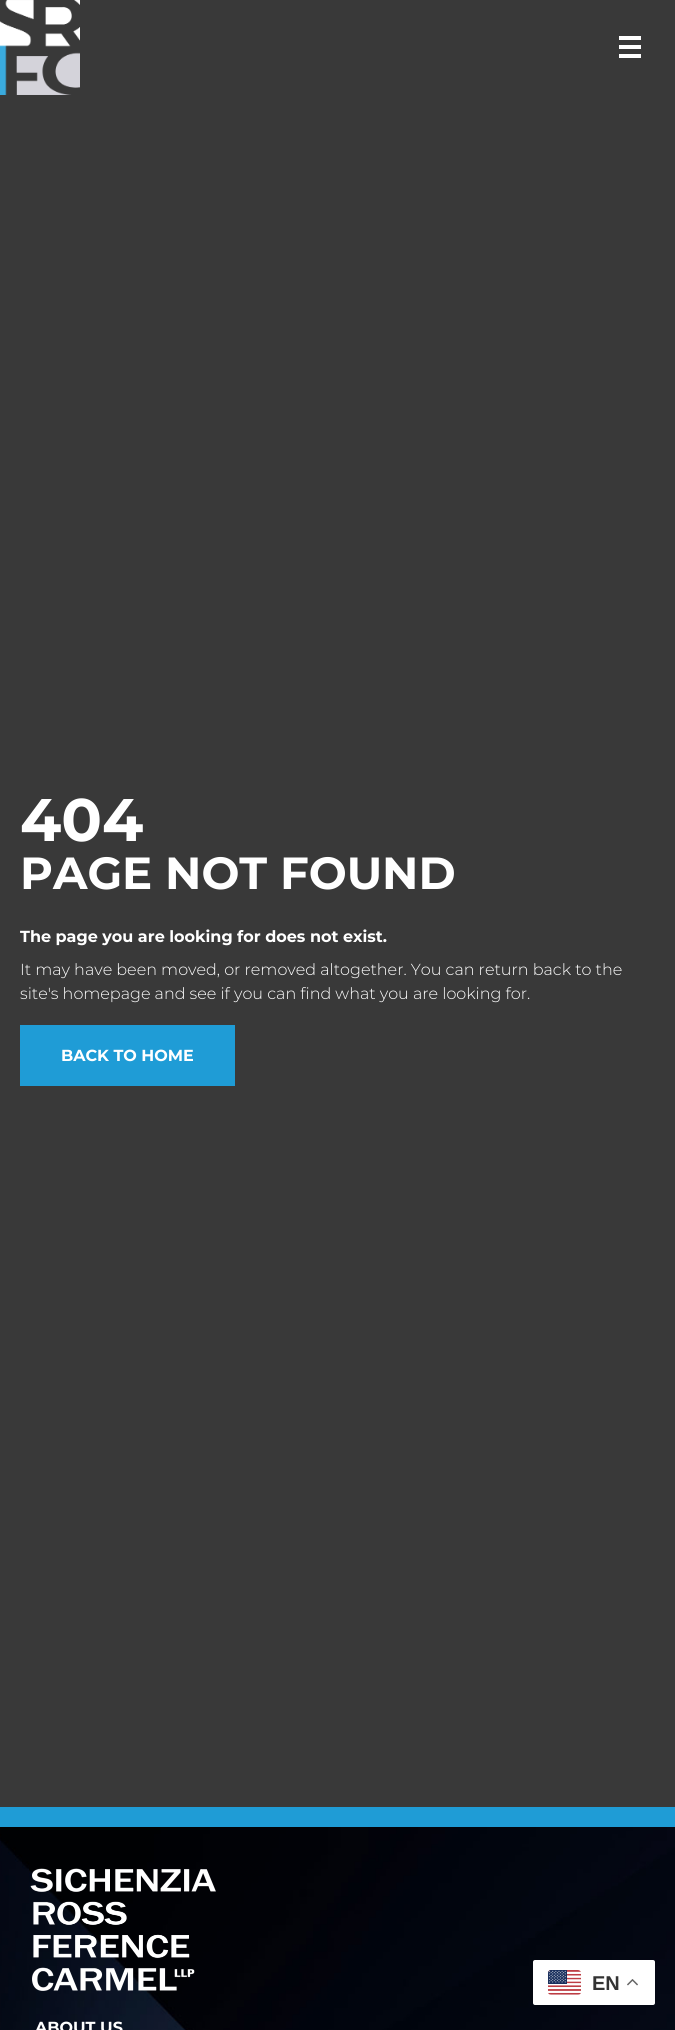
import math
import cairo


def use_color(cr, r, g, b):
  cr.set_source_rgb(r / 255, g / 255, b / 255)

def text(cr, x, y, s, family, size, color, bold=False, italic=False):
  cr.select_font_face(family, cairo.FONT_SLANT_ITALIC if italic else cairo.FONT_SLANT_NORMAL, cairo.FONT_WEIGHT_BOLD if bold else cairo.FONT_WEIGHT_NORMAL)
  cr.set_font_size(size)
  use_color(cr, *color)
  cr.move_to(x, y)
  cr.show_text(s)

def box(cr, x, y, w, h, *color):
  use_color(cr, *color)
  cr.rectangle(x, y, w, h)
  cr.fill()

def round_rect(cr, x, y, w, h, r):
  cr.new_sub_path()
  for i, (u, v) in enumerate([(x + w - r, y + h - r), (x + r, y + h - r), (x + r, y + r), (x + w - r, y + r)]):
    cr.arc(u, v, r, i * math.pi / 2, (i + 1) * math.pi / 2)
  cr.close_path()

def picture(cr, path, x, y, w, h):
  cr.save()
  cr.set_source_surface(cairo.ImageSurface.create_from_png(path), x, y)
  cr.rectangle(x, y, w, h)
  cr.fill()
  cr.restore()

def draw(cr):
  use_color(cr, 57, 57, 57)
  cr.paint()
  picture(cr, "img_01.png", 0, 0, 80, 95)
  box(cr, 619, 36, 22, 4, 255, 255, 255)
  box(cr, 619, 45, 22, 4, 255, 255, 255)
  box(cr, 619, 54, 22, 4, 255, 255, 255)
  box(cr, 0, 1807, 675, 20, 31, 156, 214)
  box(cr, 20, 1025, 215, 61, 31, 156, 214)
  picture(cr, "img_02.png", 0, 1827, 675, 203)
  picture(cr, "img_03.png", 30, 1868, 186, 123)
  use_color(cr, 255, 255, 255)
  round_rect(cr, 533, 1960, 122, 45, 2)
  cr.fill()
  picture(cr, "img_04.png", 548, 1970, 33, 25)
  picture(cr, "img_05.png", 627, 1979, 11, 7)
  text(cr, 20, 841, "404", "Montserrat", 60, (255, 255, 255), bold=True)
  text(cr, 20, 889, "PAGE NOT FOUND", "Montserrat", 45, (255, 255, 255), bold=True)
  text(cr, 20, 942, "The page you are looking for does not exist.", "Montserrat", 16, (255, 255, 255), bold=True)
  text(cr, 20, 975, "It may have been moved, or removed altogether. You can return back to the", "Montserrat Light", 16, (255, 255, 255))
  text(cr, 20, 999, "site's homepage and see if you can find what you are looking for.", "Montserrat Light", 16, (255, 255, 255))
  text(cr, 61, 1061, "BACK TO HOME", "Montserrat", 16, (255, 255, 255), bold=True)
  text(cr, 35, 2033, "ABOUT US", "Montserrat", 16, (255, 255, 255), bold=True)
  text(cr, 592, 1990, "EN", "Liberation Sans", 20, (51, 51, 51), bold=True)


surface = cairo.ImageSurface(cairo.FORMAT_RGB24, 675, 2030)
cr = cairo.Context(surface)
options = cairo.FontOptions()
options.set_hint_metrics(cairo.HINT_METRICS_OFF)
options.set_hint_style(cairo.HINT_STYLE_NONE)
cr.set_font_options(options)
cr.set_miter_limit(4)
draw(cr)
surface.write_to_png("out.png")
